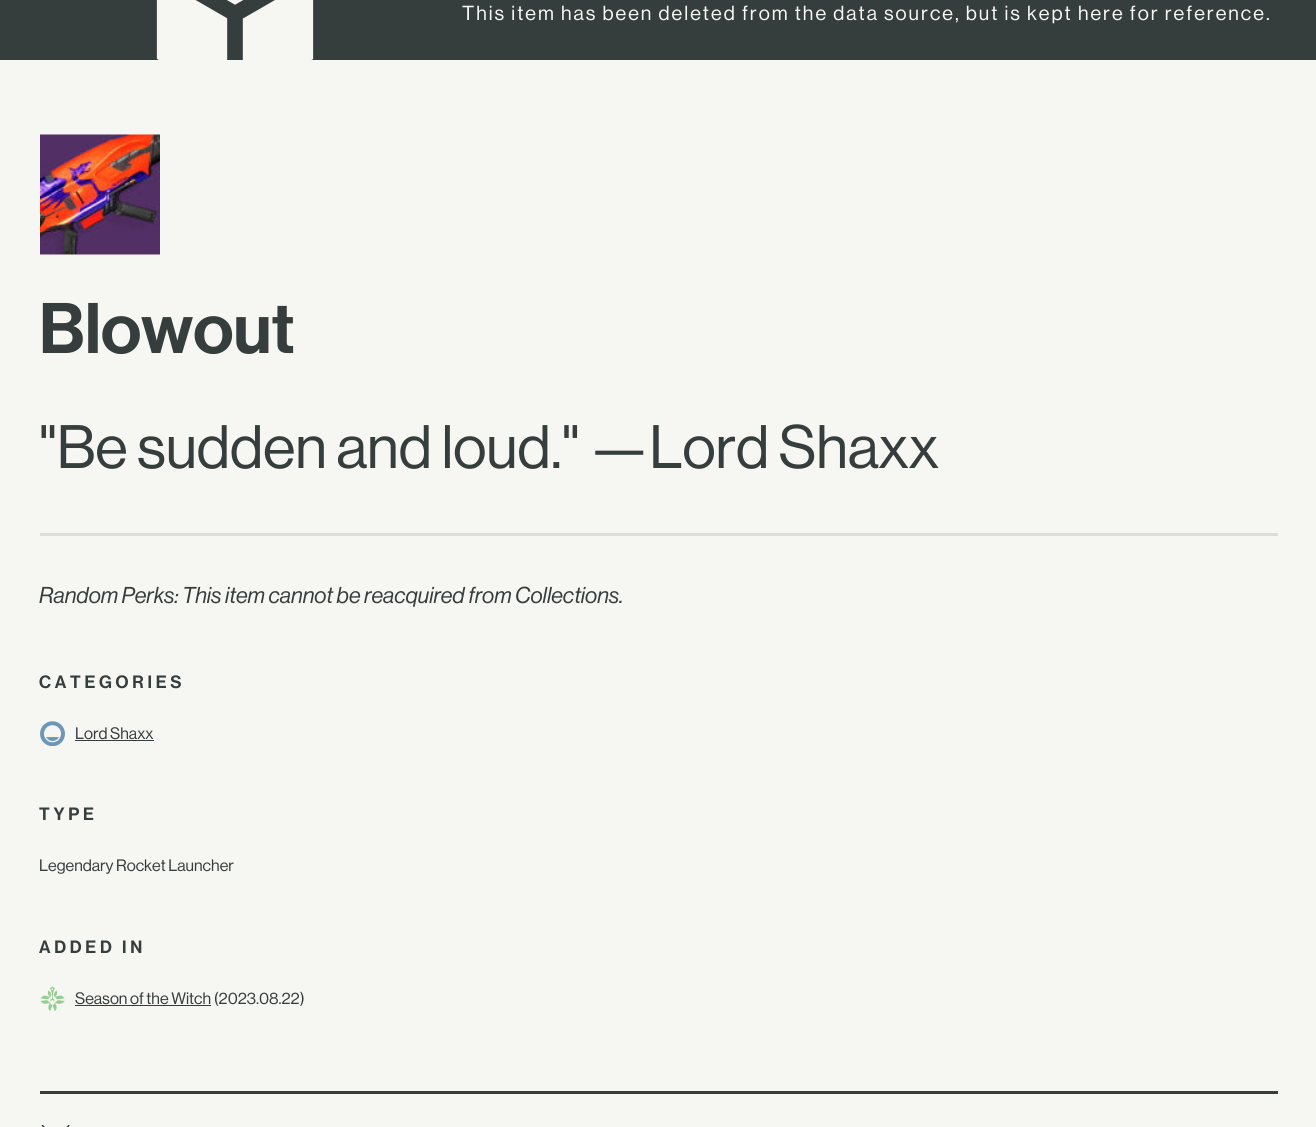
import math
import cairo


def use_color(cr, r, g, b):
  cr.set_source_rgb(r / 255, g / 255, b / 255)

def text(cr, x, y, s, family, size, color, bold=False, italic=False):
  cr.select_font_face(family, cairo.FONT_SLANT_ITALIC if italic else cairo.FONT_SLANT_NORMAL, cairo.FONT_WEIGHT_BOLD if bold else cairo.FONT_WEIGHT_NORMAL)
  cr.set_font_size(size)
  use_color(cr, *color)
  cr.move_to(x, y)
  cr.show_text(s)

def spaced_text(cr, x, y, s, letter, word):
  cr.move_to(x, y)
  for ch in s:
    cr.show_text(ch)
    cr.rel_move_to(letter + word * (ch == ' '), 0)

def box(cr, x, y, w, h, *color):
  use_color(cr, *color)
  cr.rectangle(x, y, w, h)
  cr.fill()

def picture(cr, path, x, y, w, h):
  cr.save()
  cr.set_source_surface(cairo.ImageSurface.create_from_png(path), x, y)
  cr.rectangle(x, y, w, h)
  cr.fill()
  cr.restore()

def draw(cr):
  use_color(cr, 246, 246, 243)
  cr.paint()
  box(cr, 0, 0, 1316, 60, 54, 61, 61)
  picture(cr, "img_01.png", 156, 0, 158, 60)
  picture(cr, "img_02.png", 40, 134, 120, 121)
  box(cr, 40, 533, 1238, 3, 221, 223, 215)
  picture(cr, "img_03.png", 40, 721, 25, 25)
  box(cr, 75, 740, 79, 1, 54, 61, 61)
  picture(cr, "img_04.png", 40, 986, 25, 25)
  box(cr, 75, 1005, 136, 1, 54, 61, 61)
  box(cr, 40, 1091, 1238, 3, 54, 61, 61)
  picture(cr, "img_05.png", 41, 1125, 29, 2)
  cr.select_font_face("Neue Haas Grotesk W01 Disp")
  cr.set_font_size(20)
  use_color(cr, 246, 246, 243)
  spaced_text(cr, 462, 20, "This item has been deleted from the data source, but is kept here for reference.", 2, 0)
  text(cr, 39, 353, "Blowout", "Neue Haas Grotesk W01 Disp Medium", 70, (54, 61, 61))
  text(cr, 39, 468, "\"Be sudden and loud.\" —Lord Shaxx", "Neue Haas Grotesk W01 Disp", 60, (54, 61, 61))
  text(cr, 39, 603, "Random Perks: This item cannot be reacquired from Collections.", "Neue Haas Grotesk W01 Disp", 22.5, (54, 61, 61), italic=True)
  cr.select_font_face("Neue Haas Grotesk W01 Disp Medium")
  cr.set_font_size(17.5)
  spaced_text(cr, 39, 688, "CATEGORIES", 3.75, 0)
  text(cr, 75, 739, "Lord Shaxx", "Neue Haas Grotesk W01 Disp", 16.25, (54, 61, 61))
  cr.select_font_face("Neue Haas Grotesk W01 Disp Medium")
  cr.set_font_size(17.5)
  spaced_text(cr, 39, 820, "TYPE", 3.75, 0)
  text(cr, 39, 871, "Legendary Rocket Launcher", "Neue Haas Grotesk W01 Disp", 16.25, (54, 61, 61))
  cr.select_font_face("Neue Haas Grotesk W01 Disp Medium")
  cr.set_font_size(17.5)
  spaced_text(cr, 39, 953, "ADDED IN", 3.75, 0)
  text(cr, 75, 1004, "Season of the Witch (2023.08.22)", "Neue Haas Grotesk W01 Disp", 16.25, (54, 61, 61))


surface = cairo.ImageSurface(cairo.FORMAT_RGB24, 1316, 1127)
cr = cairo.Context(surface)
options = cairo.FontOptions()
options.set_hint_metrics(cairo.HINT_METRICS_OFF)
options.set_hint_style(cairo.HINT_STYLE_NONE)
cr.set_font_options(options)
cr.set_miter_limit(4)
draw(cr)
surface.write_to_png("out.png")
